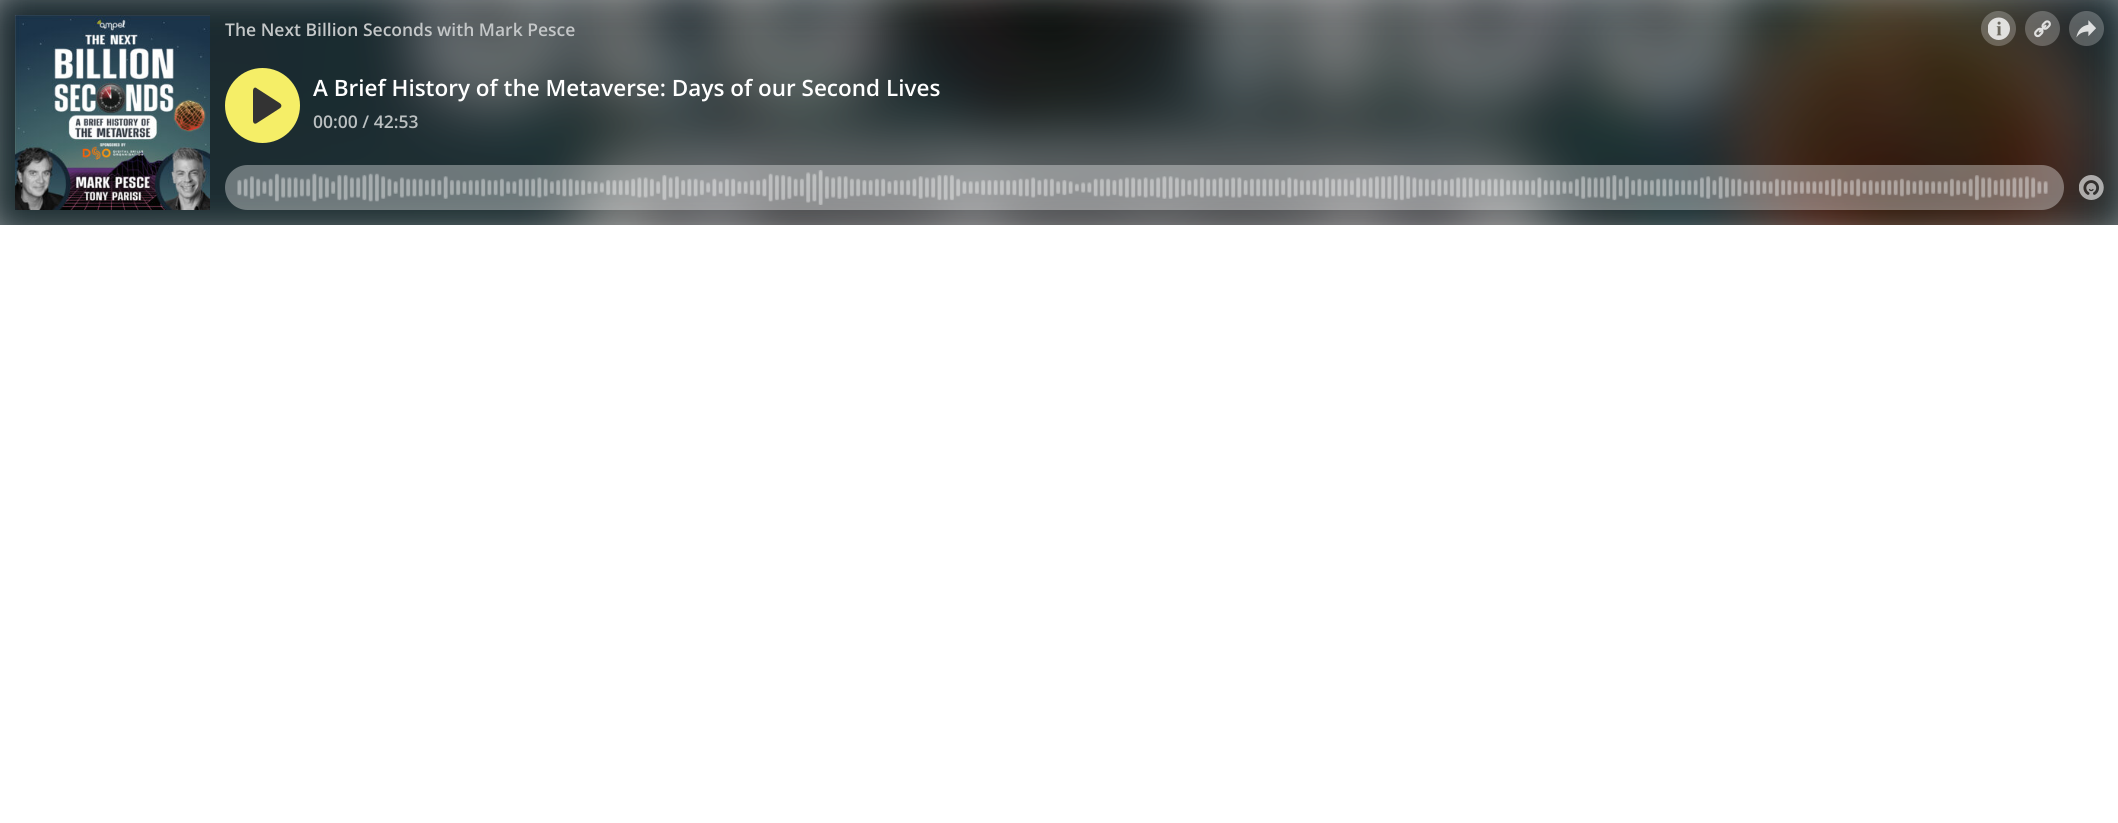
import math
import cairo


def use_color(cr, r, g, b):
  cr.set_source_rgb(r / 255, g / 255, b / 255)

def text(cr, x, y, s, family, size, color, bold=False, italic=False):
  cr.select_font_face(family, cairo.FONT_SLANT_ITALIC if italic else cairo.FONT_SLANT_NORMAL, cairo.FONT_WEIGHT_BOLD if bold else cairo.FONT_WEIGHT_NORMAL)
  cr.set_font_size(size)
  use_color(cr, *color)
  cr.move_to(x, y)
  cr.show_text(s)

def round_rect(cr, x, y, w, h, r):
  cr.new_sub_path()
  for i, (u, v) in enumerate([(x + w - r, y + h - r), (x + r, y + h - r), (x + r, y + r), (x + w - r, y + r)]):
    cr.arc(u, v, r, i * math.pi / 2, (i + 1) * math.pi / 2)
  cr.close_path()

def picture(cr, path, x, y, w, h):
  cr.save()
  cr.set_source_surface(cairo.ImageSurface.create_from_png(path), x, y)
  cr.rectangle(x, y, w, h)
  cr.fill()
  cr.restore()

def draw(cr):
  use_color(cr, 255, 255, 255)
  cr.paint()
  picture(cr, "img_01.png", 0, 0, 2118, 225)
  picture(cr, "img_02.png", 15, 15, 195, 195)
  cr.set_source_rgba(1, 1, 1, 0.24)
  cr.arc(1998.5, 28.5, 17.5, 0, 2 * math.pi)
  cr.fill()
  picture(cr, "img_03.png", 1988, 17, 22, 23)
  cr.arc(2042.5, 28.5, 17.5, 0, 2 * math.pi)
  cr.fill()
  picture(cr, "img_04.png", 2034, 20, 17, 18)
  cr.arc(2086.5, 28.5, 17.5, 0, 2 * math.pi)
  cr.fill()
  picture(cr, "img_05.png", 2076, 20, 20, 18)
  use_color(cr, 245, 238, 103)
  cr.arc(262.5, 105.5, 37.5, 0, 2 * math.pi)
  cr.fill()
  use_color(cr, 51, 51, 51)
  cr.new_path()
  cr.move_to(257, 123)
  cr.curve_to(255, 124.5, 253, 123.5, 253, 120.5)
  cr.line_to(253, 91)
  cr.curve_to(253, 88, 255, 86.5, 257, 88.5)
  cr.line_to(279.5, 103)
  cr.curve_to(282, 104.5, 282, 107, 279.5, 108.5)
  cr.close_path()
  cr.fill()
  cr.set_source_rgba(1, 1, 1, 0.35)
  round_rect(cr, 225, 165, 1839, 45, 22.5)
  cr.fill()
  picture(cr, "img_06.png", 237, 170, 1274, 35)
  picture(cr, "img_07.png", 1512, 175, 536, 26)
  picture(cr, "img_08.png", 2079, 175, 25, 25)
  text(cr, 225, 36, "The Next Billion Seconds with Mark Pesce", "Open Sans SemiBold", 17.5, (196, 199, 200))
  text(cr, 313, 96, "A Brief History of the Metaverse: Days of our Second Lives", "Open Sans SemiBold", 22.5, (255, 255, 255))
  text(cr, 313, 128, "00:00 / 42:53", "Open Sans SemiBold", 17.5, (187, 192, 193))


surface = cairo.ImageSurface(cairo.FORMAT_RGB24, 2118, 823)
cr = cairo.Context(surface)
options = cairo.FontOptions()
options.set_hint_metrics(cairo.HINT_METRICS_OFF)
options.set_hint_style(cairo.HINT_STYLE_NONE)
cr.set_font_options(options)
cr.set_miter_limit(4)
draw(cr)
surface.write_to_png("out.png")
